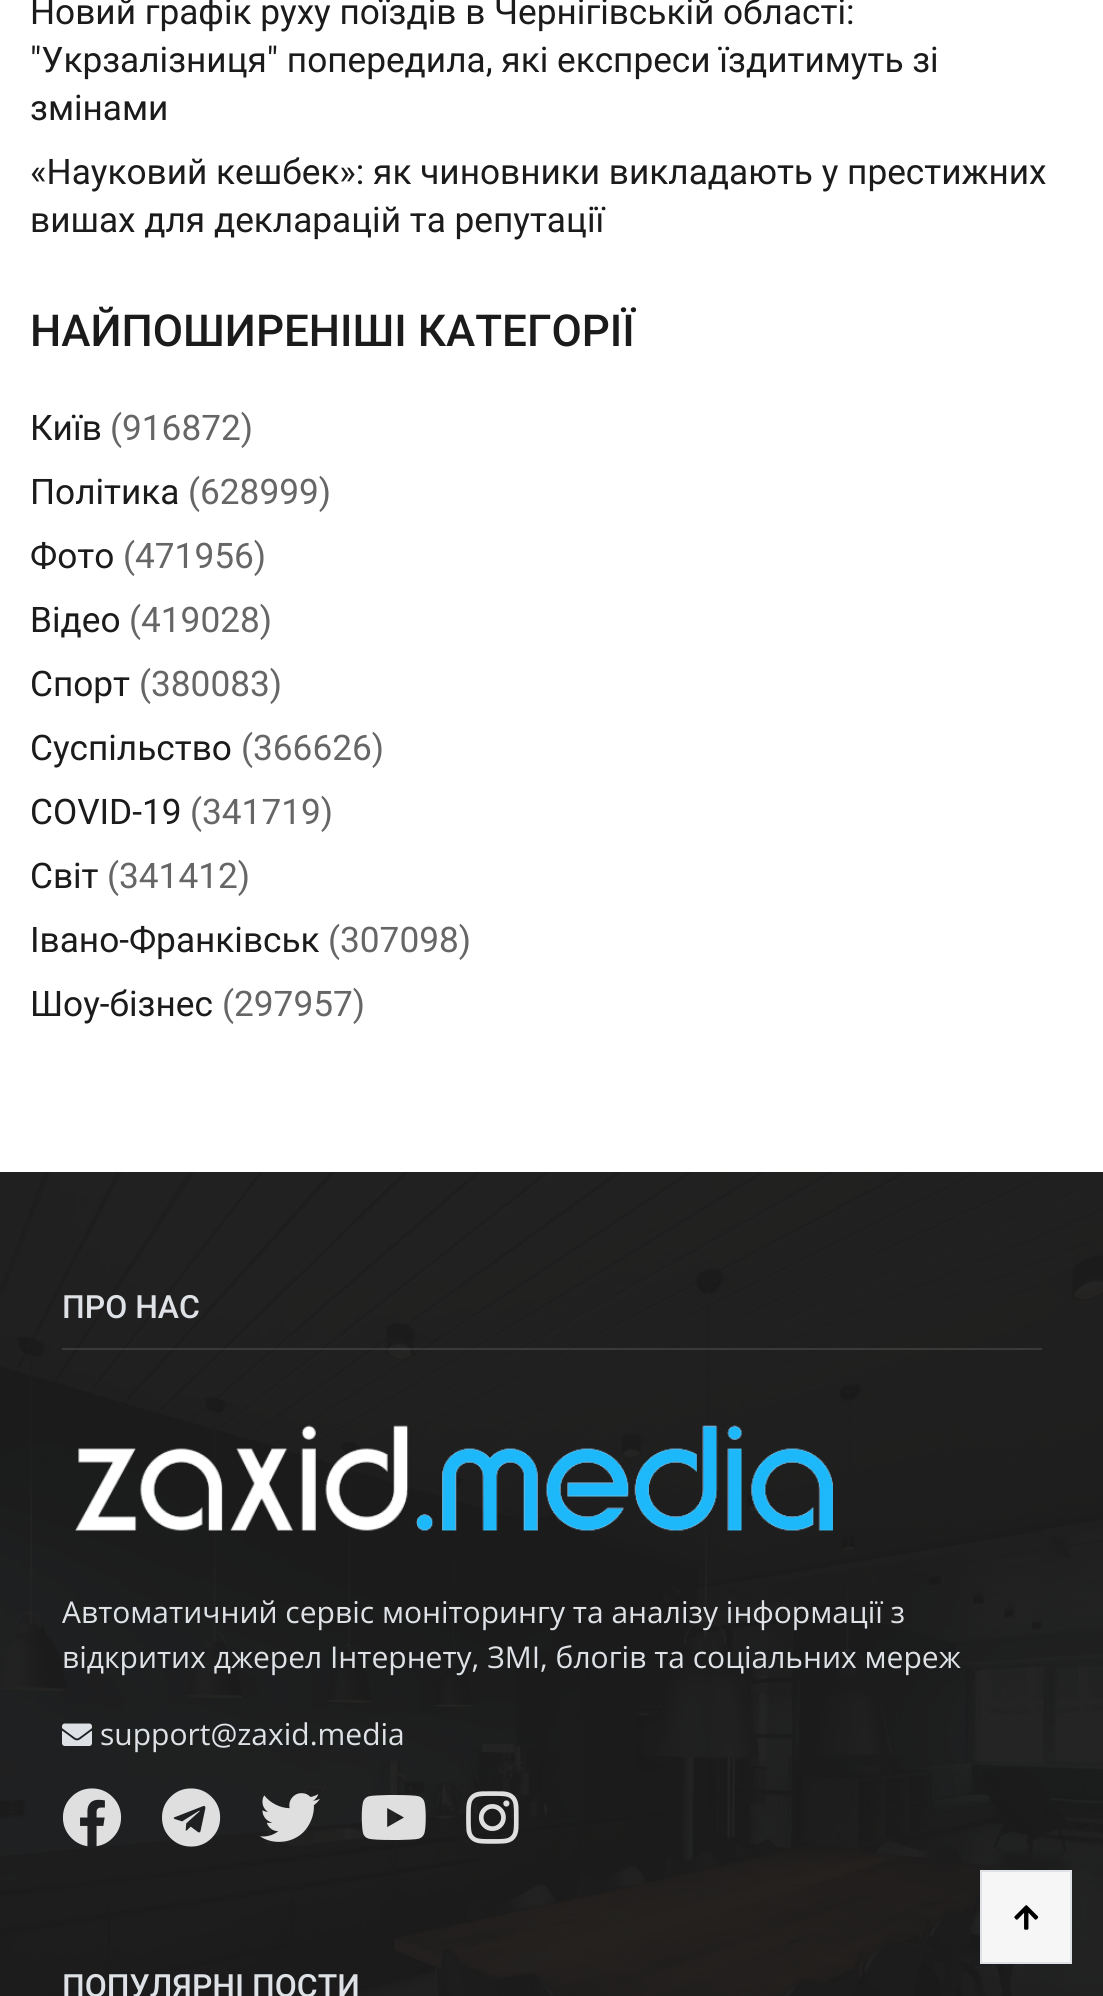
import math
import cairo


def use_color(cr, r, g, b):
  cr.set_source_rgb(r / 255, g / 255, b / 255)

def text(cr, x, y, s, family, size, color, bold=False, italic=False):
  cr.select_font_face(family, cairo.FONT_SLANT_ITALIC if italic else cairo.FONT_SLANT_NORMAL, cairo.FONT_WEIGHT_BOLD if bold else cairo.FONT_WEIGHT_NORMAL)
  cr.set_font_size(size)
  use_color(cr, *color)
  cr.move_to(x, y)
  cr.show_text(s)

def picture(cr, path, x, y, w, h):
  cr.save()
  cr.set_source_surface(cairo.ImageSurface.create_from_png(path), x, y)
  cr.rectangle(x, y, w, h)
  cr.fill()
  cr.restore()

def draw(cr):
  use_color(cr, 255, 255, 255)
  cr.paint()
  picture(cr, "img_01.png", 0, 1172, 1103, 824)
  cr.set_source_rgba(1, 1, 1, 0.12)
  cr.rectangle(62, 1348, 980, 2)
  cr.fill()
  picture(cr, "img_02.png", 75, 1425, 758, 106)
  picture(cr, "img_03.png", 62, 1723, 30, 23)
  picture(cr, "img_04.png", 62, 1788, 60, 59)
  picture(cr, "img_05.png", 162, 1788, 59, 59)
  picture(cr, "img_06.png", 260, 1793, 60, 49)
  picture(cr, "img_07.png", 361, 1795, 65, 45)
  picture(cr, "img_08.png", 466, 1791, 53, 53)
  use_color(cr, 246, 246, 246)
  cr.rectangle(981, 1871, 90, 92)
  cr.fill_preserve()
  use_color(cr, 222, 226, 230)
  cr.stroke()
  picture(cr, "img_09.png", 1014, 1905, 25, 25)
  text(cr, 30, 24, "Новий графік руху поїздів в Чернігівській області:", "Roboto", 35.2, (27, 27, 27))
  text(cr, 30, 72, "\"Укрзалізниця\" попередила, які експреси їздитимуть зі", "Roboto", 35.2, (27, 27, 27))
  text(cr, 30, 120, "змінами", "Roboto", 35.2, (27, 27, 27))
  text(cr, 30, 184, "«Науковий кешбек»: як чиновники викладають у престижних", "Roboto", 35.2, (27, 27, 27))
  text(cr, 30, 232, "вишах для декларацій та репутації", "Roboto", 35.2, (27, 27, 27))
  text(cr, 30, 346, "НАЙПОШИРЕНІШІ КАТЕГОРІЇ", "Roboto Medium", 44, (27, 27, 27))
  text(cr, 30, 440, "Київ", "Roboto", 35.2, (27, 27, 27))
  text(cr, 110, 440, "(916872)", "Roboto", 35.2, (102, 102, 102))
  text(cr, 30, 504, "Політика", "Roboto", 35.2, (27, 27, 27))
  text(cr, 188, 504, "(628999)", "Roboto", 35.2, (102, 102, 102))
  text(cr, 30, 568, "Фото", "Roboto", 35.2, (27, 27, 27))
  text(cr, 123, 568, "(471956)", "Roboto", 35.2, (102, 102, 102))
  text(cr, 30, 632, "Відео", "Roboto", 35.2, (27, 27, 27))
  text(cr, 129, 632, "(419028)", "Roboto", 35.2, (102, 102, 102))
  text(cr, 30, 696, "Спорт", "Roboto", 35.2, (27, 27, 27))
  text(cr, 139, 696, "(380083)", "Roboto", 35.2, (102, 102, 102))
  text(cr, 30, 760, "Суспільство", "Roboto", 35.2, (27, 27, 27))
  text(cr, 241, 760, "(366626)", "Roboto", 35.2, (102, 102, 102))
  text(cr, 30, 824, "COVID-19", "Roboto", 35.2, (27, 27, 27))
  text(cr, 190, 824, "(341719)", "Roboto", 35.2, (102, 102, 102))
  text(cr, 30, 888, "Світ", "Roboto", 35.2, (27, 27, 27))
  text(cr, 107, 888, "(341412)", "Roboto", 35.2, (102, 102, 102))
  text(cr, 30, 952, "Івано-Франківськ", "Roboto", 35.2, (27, 27, 27))
  text(cr, 328, 952, "(307098)", "Roboto", 35.2, (102, 102, 102))
  text(cr, 30, 1016, "Шоу-бізнес", "Roboto", 35.2, (27, 27, 27))
  text(cr, 222, 1016, "(297957)", "Roboto", 35.2, (102, 102, 102))
  text(cr, 62, 1318, "ПРО НАС", "Roboto Medium", 32, (222, 226, 230))
  text(cr, 62, 1623, "Автоматичний сервіс моніторингу та аналізу інформації з", "Open Sans", 30, (222, 226, 230))
  text(cr, 62, 1668, "відкритих джерел Інтернету, ЗМІ, блогів та соціальних мереж", "Open Sans", 30, (222, 226, 230))
  text(cr, 100, 1745, "support@zaxid.media", "Open Sans", 30, (222, 226, 230))
  text(cr, 62, 1997, "ПОПУЛЯРНІ ПОСТИ", "Roboto Medium", 32, (222, 226, 230))


surface = cairo.ImageSurface(cairo.FORMAT_RGB24, 1103, 1996)
cr = cairo.Context(surface)
options = cairo.FontOptions()
options.set_hint_metrics(cairo.HINT_METRICS_OFF)
options.set_hint_style(cairo.HINT_STYLE_NONE)
cr.set_font_options(options)
cr.set_miter_limit(4)
draw(cr)
surface.write_to_png("out.png")
